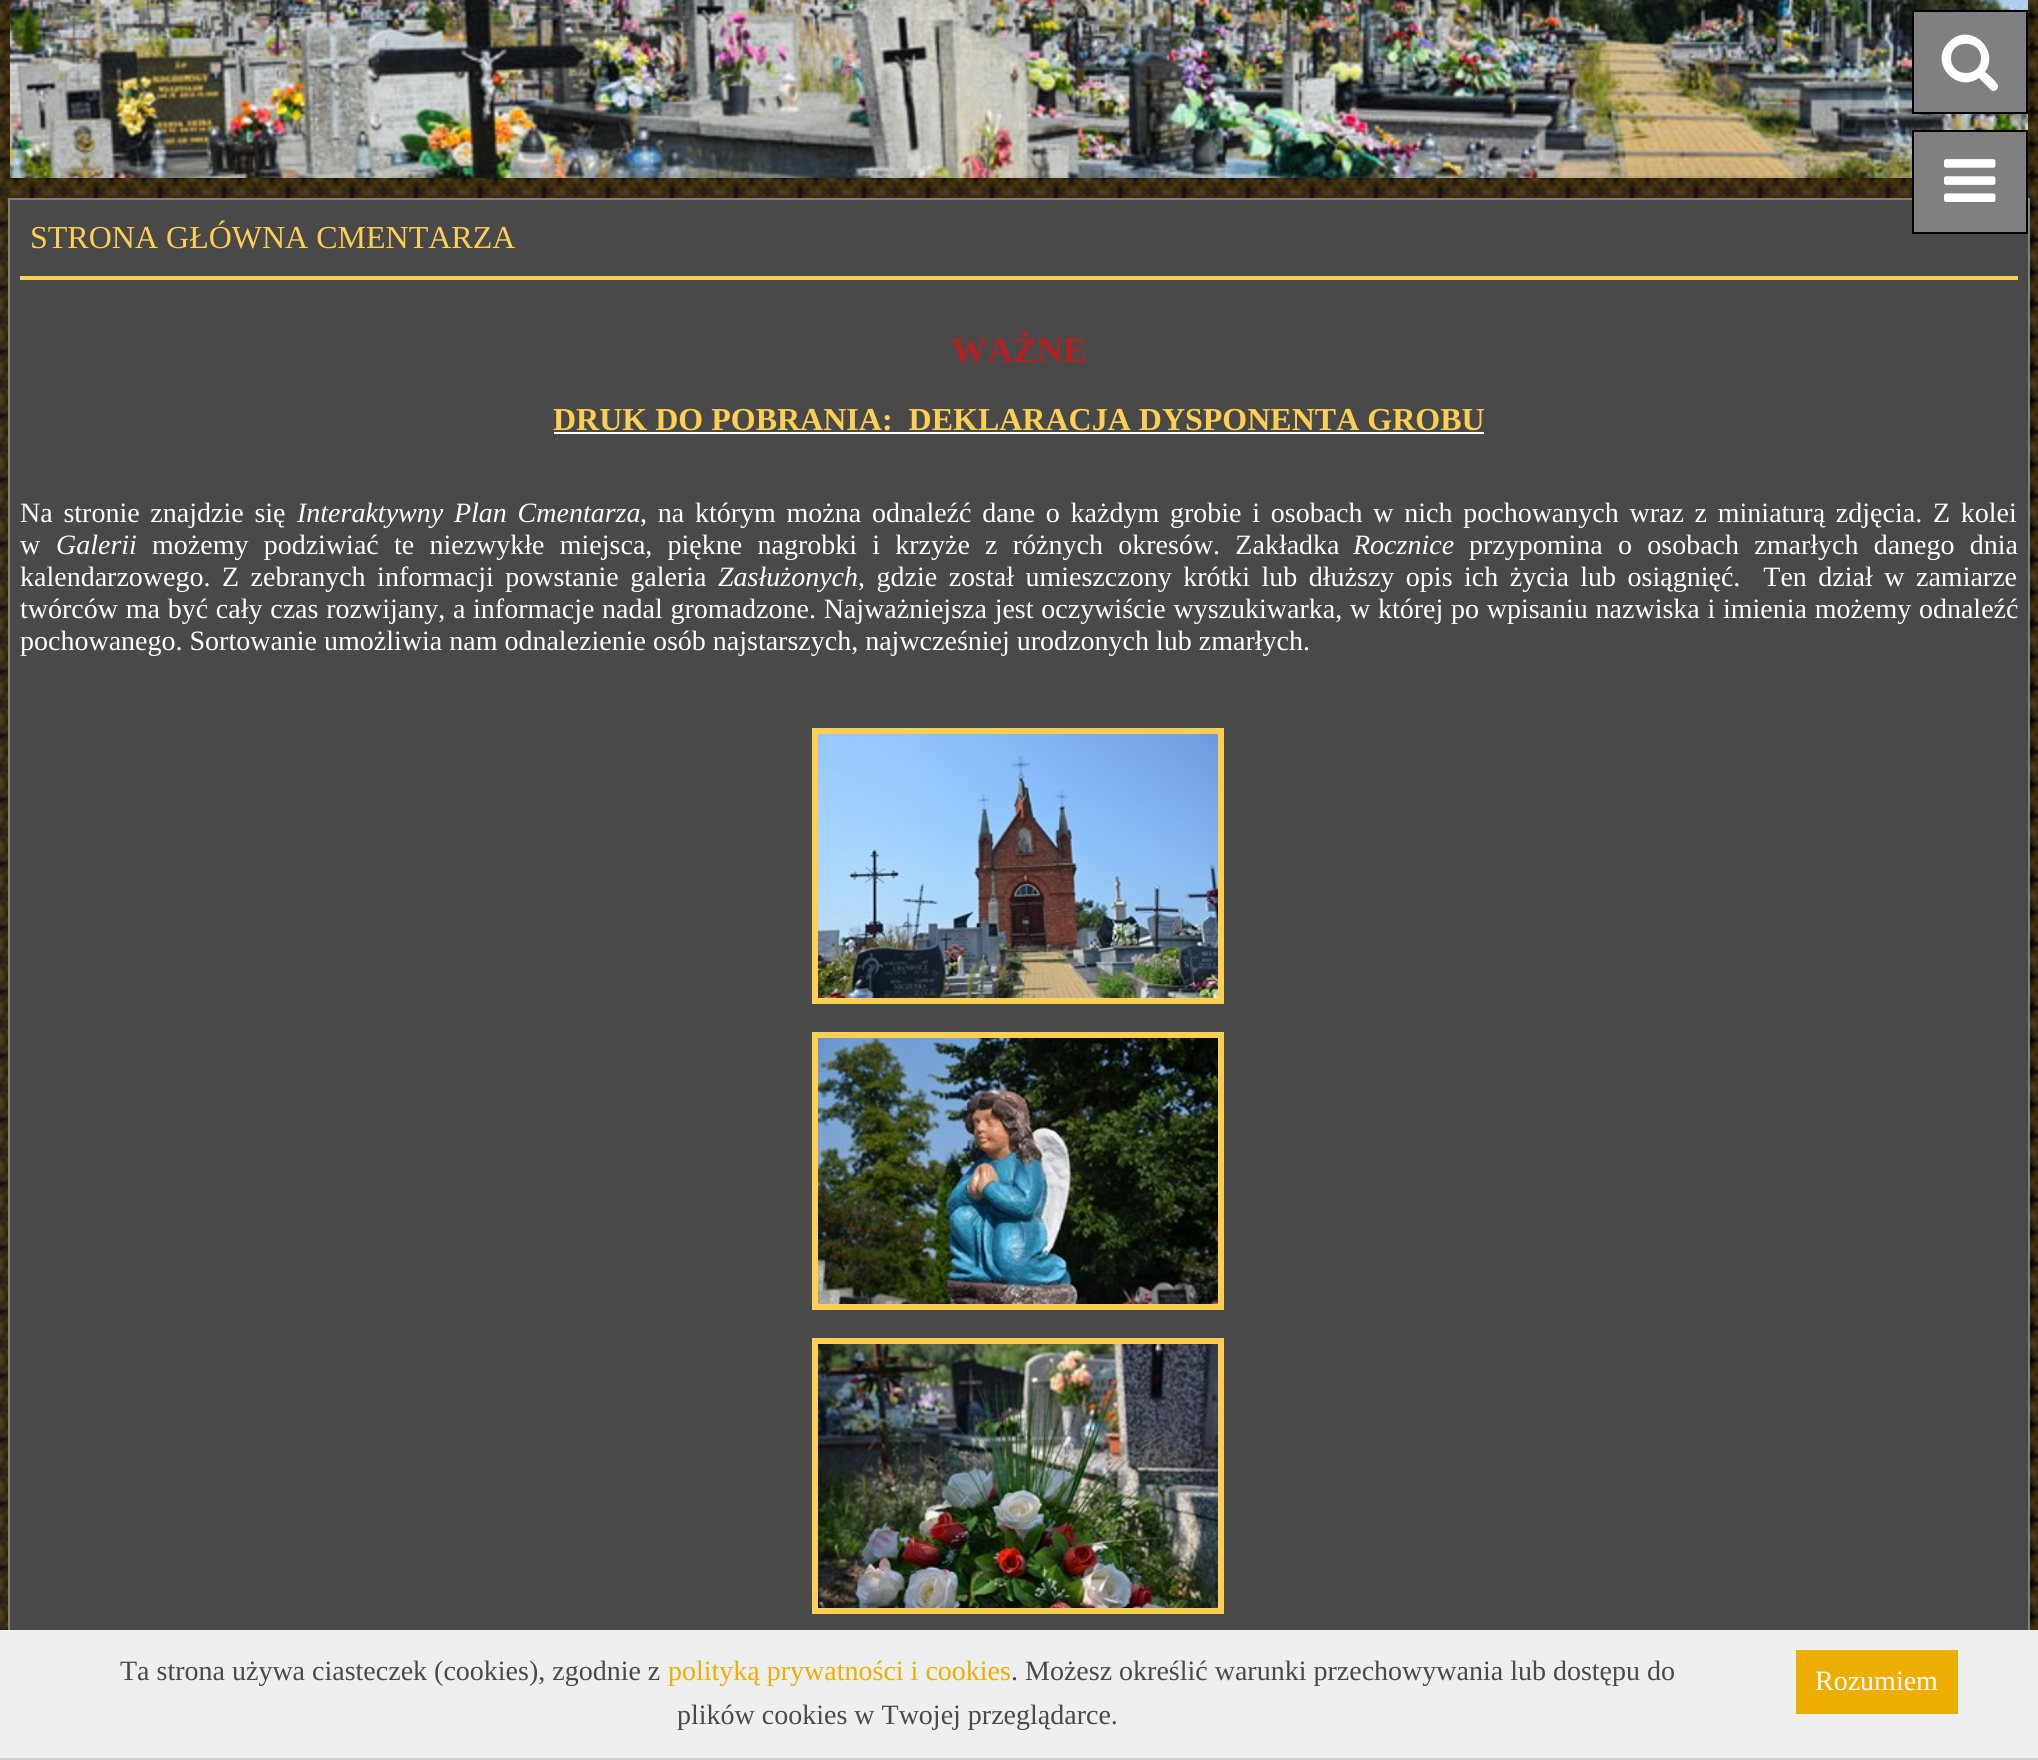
import math
import cairo


def use_color(cr, r, g, b):
  cr.set_source_rgb(r / 255, g / 255, b / 255)

def text(cr, x, y, s, family, size, color, bold=False, italic=False):
  cr.select_font_face(family, cairo.FONT_SLANT_ITALIC if italic else cairo.FONT_SLANT_NORMAL, cairo.FONT_WEIGHT_BOLD if bold else cairo.FONT_WEIGHT_NORMAL)
  cr.set_font_size(size)
  use_color(cr, *color)
  cr.move_to(x, y)
  cr.show_text(s)

def spaced_text(cr, x, y, s, letter, word):
  cr.move_to(x, y)
  for ch in s:
    cr.show_text(ch)
    cr.rel_move_to(letter + word * (ch == ' '), 0)

def box(cr, x, y, w, h, *color):
  use_color(cr, *color)
  cr.rectangle(x, y, w, h)
  cr.fill()

def picture(cr, path, x, y, w, h):
  cr.save()
  cr.set_source_surface(cairo.ImageSurface.create_from_png(path), x, y)
  cr.rectangle(x, y, w, h)
  cr.fill()
  cr.restore()

def draw(cr):
  use_color(cr, 255, 255, 255)
  cr.paint()
  picture(cr, "img_01.png", 0, 0, 2038, 1630)
  picture(cr, "img_02.png", 10, 0, 2018, 178)
  use_color(cr, 128, 128, 128)
  cr.rectangle(1913, 11, 114, 102)
  cr.fill_preserve()
  use_color(cr, 0, 0, 0)
  cr.stroke()
  use_color(cr, 255, 255, 255)
  cr.new_path()
  cr.move_to(1981, 58)
  cr.curve_to(1981, 78, 1951, 78, 1951, 58)
  cr.curve_to(1951, 39, 1981, 39, 1981, 58)
  cr.close_path()
  cr.move_to(1998, 86)
  cr.curve_to(1998, 83, 1988, 74, 1985, 72)
  cr.curve_to(2001, 49, 1969, 21, 1949, 42)
  cr.curve_to(1928, 62, 1956, 94, 1979, 78)
  cr.line_to(1990, 89)
  cr.curve_to(1991, 90, 1992, 91, 1993, 91)
  cr.curve_to(1996, 91, 1998, 89, 1998, 86)
  cr.close_path()
  cr.fill()
  box(cr, 10, 200, 2018, 1430, 73, 73, 73)
  cr.rectangle(9, 199, 2020, 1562)
  use_color(cr, 128, 128, 128)
  cr.stroke()
  cr.rectangle(1913, 131, 114, 102)
  cr.fill_preserve()
  use_color(cr, 0, 0, 0)
  cr.stroke()
  picture(cr, "img_03.png", 1944, 159, 52, 43)
  box(cr, 20, 276, 1998, 4, 254, 207, 82)
  box(cr, 554, 432, 930, 2, 255, 255, 255)
  cr.rectangle(815, 731, 406, 270)
  use_color(cr, 254, 207, 82)
  cr.set_line_width(6)
  cr.stroke()
  picture(cr, "img_04.png", 818, 734, 400, 264)
  cr.rectangle(815, 1035, 406, 272)
  cr.stroke()
  picture(cr, "img_05.png", 818, 1038, 400, 266)
  cr.rectangle(815, 1341, 406, 270)
  cr.stroke()
  picture(cr, "img_06.png", 818, 1344, 400, 264)
  box(cr, 0, 1630, 2038, 128, 239, 239, 239)
  box(cr, 0, 1758, 2038, 2, 211, 208, 208)
  box(cr, 1796, 1650, 162, 64, 238, 173, 3)
  text(cr, 30, 248, "STRONA GŁÓWNA CMENTARZA", "Liberation Serif", 32, (254, 207, 82))
  text(cr, 951, 362, "WAŻNE", "Liberation Serif", 36, (178, 34, 34), bold=True)
  text(cr, 553, 430, "DRUK DO POBRANIA:  DEKLARACJA DYSPONENTA GROBU", "Liberation Serif", 32, (254, 207, 82), bold=True)
  cr.select_font_face("Liberation Serif")
  cr.set_font_size(28)
  use_color(cr, 255, 255, 255)
  spaced_text(cr, 20, 522, "Na stronie znajdzie się", 0, 3.75)
  cr.select_font_face("Liberation Serif", cairo.FONT_SLANT_ITALIC)
  spaced_text(cr, 297, 522, "Interaktywny Plan Cmentarza", 0, 3.75)
  cr.select_font_face("Liberation Serif")
  spaced_text(cr, 640, 522, ", na którym można odnaleźć dane o każdym grobie i osobach w nich pochowanych wraz z miniaturą zdjęcia. Z kolei", 0, 3.75)
  text(cr, 20, 554, "w", "Liberation Serif", 28, (255, 255, 255))
  text(cr, 56, 554, "Galerii", "Liberation Serif", 28, (255, 255, 255), italic=True)
  cr.select_font_face("Liberation Serif")
  spaced_text(cr, 152, 554, "możemy podziwiać te niezwykłe miejsca, piękne nagrobki i krzyże z różnych okresów. Zakładka", 0, 8.25)
  text(cr, 1353, 554, "Rocznice", "Liberation Serif", 28, (255, 255, 255), italic=True)
  cr.select_font_face("Liberation Serif")
  spaced_text(cr, 1469, 554, "przypomina o osobach zmarłych danego dnia", 0, 8.25)
  spaced_text(cr, 20, 586, "kalendarzowego. Z zebranych informacji powstanie galeria", 0, 4.5)
  text(cr, 718, 586, "Zasłużonych", "Liberation Serif", 28, (255, 255, 255), italic=True)
  cr.select_font_face("Liberation Serif")
  spaced_text(cr, 858, 586, ", gdzie został umieszczony krótki lub dłuższy opis ich życia lub osiągnięć.  Ten dział w zamiarze", 0, 4.5)
  spaced_text(cr, 20, 618, "twórców ma być cały czas rozwijany, a informacje nadal gromadzone. Najważniejsza jest oczywiście wyszukiwarka, w której po wpisaniu nazwiska i imienia możemy odnaleźć", 0, 0.75)
  text(cr, 20, 650, "pochowanego. Sortowanie umożliwia nam odnalezienie osób najstarszych, najwcześniej urodzonych lub zmarłych.", "Liberation Serif", 28, (255, 255, 255))
  text(cr, 120, 1680, "Ta strona używa ciasteczek (cookies), zgodnie z", "Liberation Serif", 28, (73, 73, 73))
  text(cr, 668, 1680, "polityką prywatności i cookies", "Liberation Serif", 28, (238, 173, 3))
  text(cr, 1011, 1680, ". Możesz określić warunki przechowywania lub dostępu do", "Liberation Serif", 28, (73, 73, 73))
  text(cr, 677, 1724, "plików cookies w Twojej przeglądarce.", "Liberation Serif", 28, (73, 73, 73))
  text(cr, 1815, 1690, "Rozumiem", "Liberation Serif", 28, (255, 255, 255))


surface = cairo.ImageSurface(cairo.FORMAT_RGB24, 2038, 1760)
cr = cairo.Context(surface)
options = cairo.FontOptions()
options.set_hint_metrics(cairo.HINT_METRICS_OFF)
options.set_hint_style(cairo.HINT_STYLE_NONE)
cr.set_font_options(options)
cr.set_miter_limit(4)
draw(cr)
surface.write_to_png("out.png")
